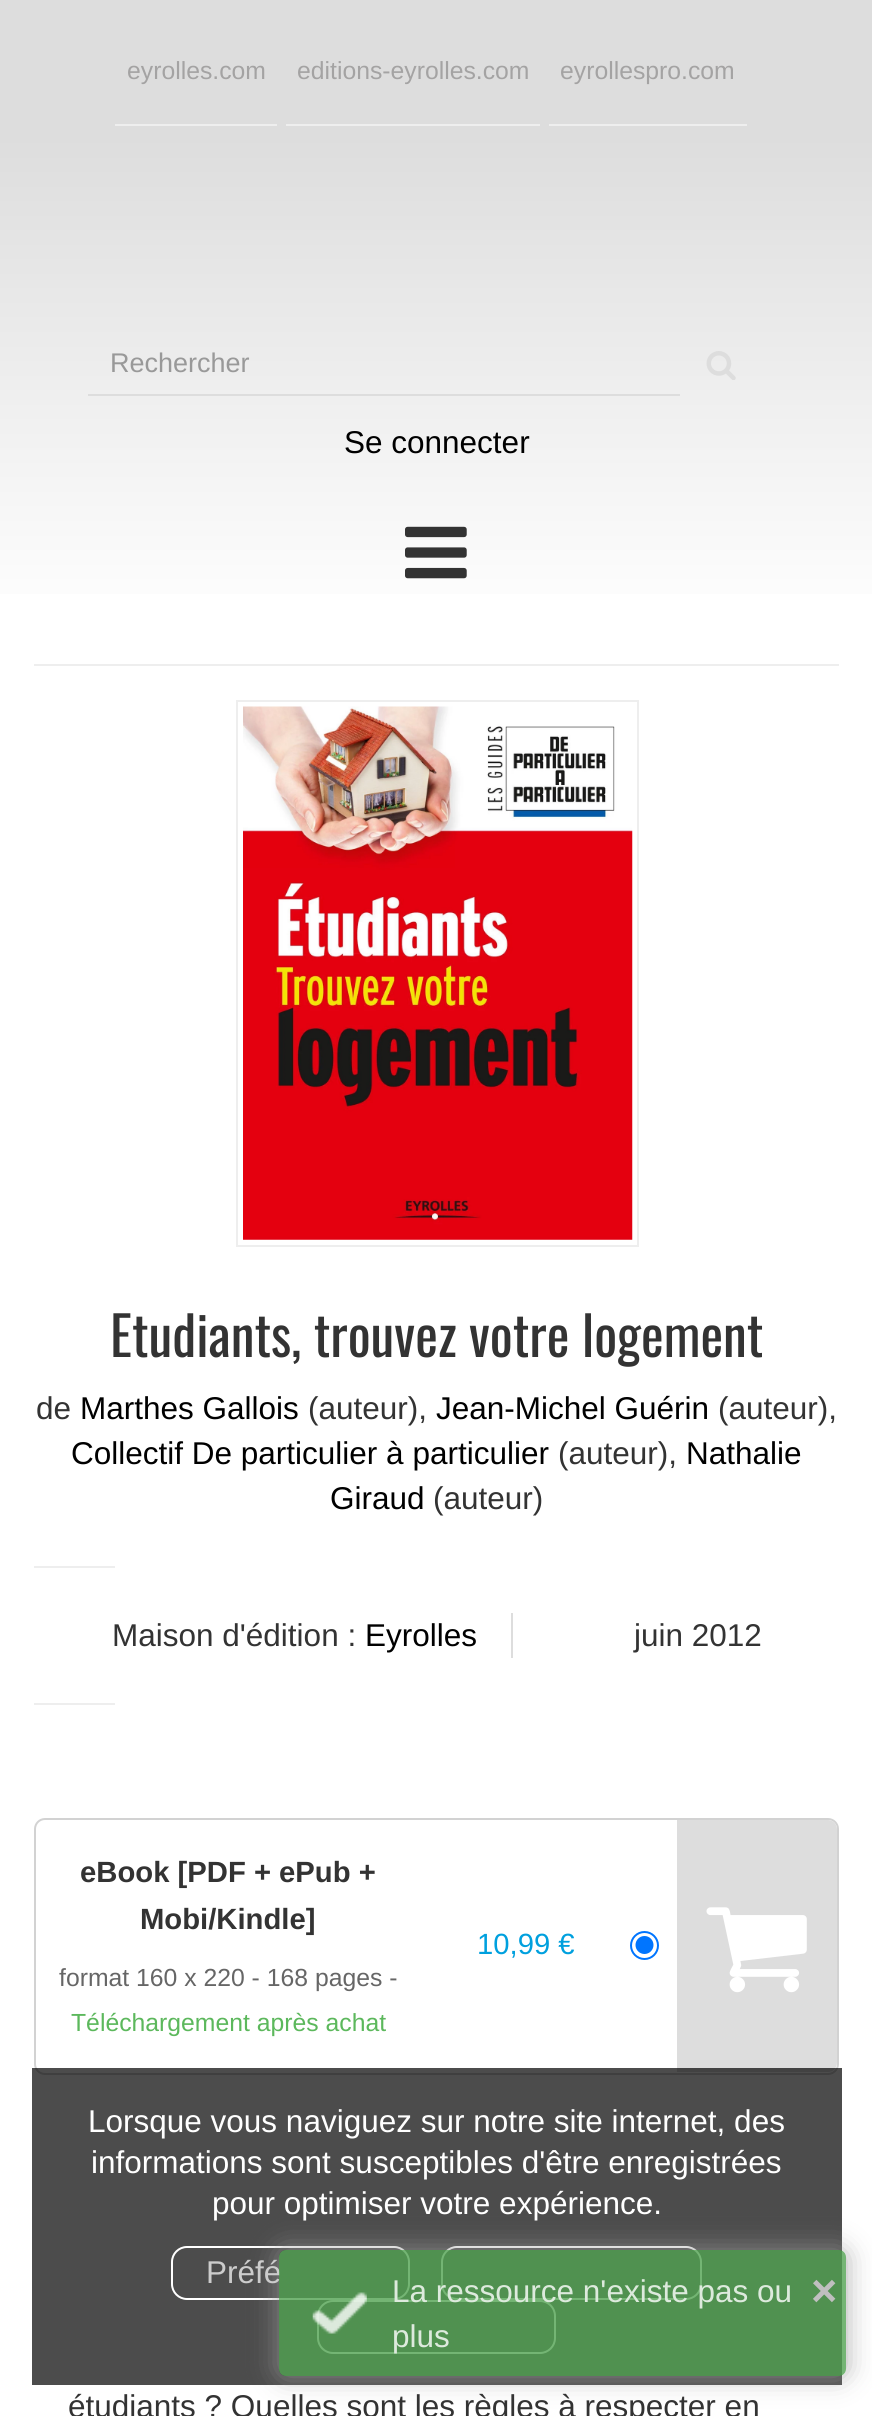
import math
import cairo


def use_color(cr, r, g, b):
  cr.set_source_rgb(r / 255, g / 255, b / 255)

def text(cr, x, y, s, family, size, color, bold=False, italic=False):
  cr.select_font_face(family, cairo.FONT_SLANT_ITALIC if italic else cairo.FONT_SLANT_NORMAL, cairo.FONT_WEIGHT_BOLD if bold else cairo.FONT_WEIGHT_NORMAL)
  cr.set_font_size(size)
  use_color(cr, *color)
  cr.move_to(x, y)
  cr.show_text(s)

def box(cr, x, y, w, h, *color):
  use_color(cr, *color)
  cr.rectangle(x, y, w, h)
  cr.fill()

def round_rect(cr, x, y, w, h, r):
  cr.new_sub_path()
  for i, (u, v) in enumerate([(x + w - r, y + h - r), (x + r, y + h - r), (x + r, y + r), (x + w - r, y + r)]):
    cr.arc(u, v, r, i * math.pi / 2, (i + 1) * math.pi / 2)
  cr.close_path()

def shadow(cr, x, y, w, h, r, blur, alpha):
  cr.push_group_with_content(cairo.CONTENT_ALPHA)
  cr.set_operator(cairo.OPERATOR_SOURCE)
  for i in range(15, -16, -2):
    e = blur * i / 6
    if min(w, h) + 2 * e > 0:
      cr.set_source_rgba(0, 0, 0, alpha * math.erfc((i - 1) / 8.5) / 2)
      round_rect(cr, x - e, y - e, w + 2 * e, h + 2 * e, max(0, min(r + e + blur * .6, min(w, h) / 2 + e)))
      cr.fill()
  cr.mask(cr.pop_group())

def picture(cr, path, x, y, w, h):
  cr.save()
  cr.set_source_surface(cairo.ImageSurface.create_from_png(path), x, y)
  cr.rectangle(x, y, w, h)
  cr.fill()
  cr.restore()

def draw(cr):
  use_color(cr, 255, 255, 255)
  cr.paint()
  box(cr, 0, 0, 872, 137, 221, 221, 221)
  box(cr, 115, 124, 162, 2, 238, 238, 238)
  box(cr, 286, 124, 254, 2, 238, 238, 238)
  box(cr, 549, 124, 198, 2, 238, 238, 238)
  gradient = cairo.LinearGradient(437, 137, 437, 630)
  gradient.add_color_stop_rgba(0, 0.867, 0.867, 0.867, 1)
  gradient.add_color_stop_rgba(1, 1, 1, 1, 1)
  cr.set_source(gradient)
  cr.rectangle(0, 137, 872, 457)
  cr.fill()
  box(cr, 88, 394, 592, 2, 221, 221, 221)
  picture(cr, "img_01.png", 706, 351, 30, 29)
  picture(cr, "img_02.png", 405, 526, 62, 53)
  box(cr, 34, 664, 805, 2, 238, 238, 238)
  cr.rectangle(237, 701, 401, 545)
  cr.stroke()
  picture(cr, "img_03.png", 243, 706, 390, 534)
  box(cr, 34, 1566, 81, 2, 238, 238, 238)
  box(cr, 511, 1613, 2, 45, 221, 221, 221)
  box(cr, 34, 1703, 81, 2, 238, 238, 238)
  round_rect(cr, 35, 1819, 803, 255, 10)
  use_color(cr, 210, 210, 210)
  cr.stroke()
  cr.arc(644.5, 1945.5, 13.5, 0, 2 * math.pi)
  use_color(cr, 0, 117, 255)
  cr.stroke()
  cr.arc(644.5, 1945, 9, 0, 2 * math.pi)
  cr.fill()
  use_color(cr, 221, 221, 221)
  cr.new_path()
  cr.move_to(677, 1820)
  cr.line_to(828, 1820)
  cr.curve_to(833, 1820, 837, 1824, 837, 1829)
  cr.line_to(837, 2063)
  cr.curve_to(837, 2068, 833, 2072, 828, 2072)
  cr.line_to(677, 2072)
  cr.close_path()
  cr.fill()
  picture(cr, "img_04.png", 706, 1907, 101, 86)
  cr.set_source_rgba(0, 0, 0, 0.7)
  cr.rectangle(32, 2068, 810, 317)
  cr.fill()
  round_rect(cr, 172, 2247, 237, 52, 15)
  use_color(cr, 255, 255, 255)
  cr.stroke()
  round_rect(cr, 442, 2247, 259, 52, 15)
  cr.stroke()
  round_rect(cr, 318, 2301, 237, 52, 15)
  cr.stroke()
  cr.save()
  cr.set_fill_rule(cairo.FILL_RULE_EVEN_ODD)
  cr.new_path()
  cr.move_to(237, 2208)
  cr.line_to(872, 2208)
  cr.line_to(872, 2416)
  cr.line_to(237, 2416)
  cr.close_path()
  cr.move_to(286, 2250)
  cr.line_to(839, 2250)
  cr.curve_to(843, 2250, 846, 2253, 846, 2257)
  cr.line_to(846, 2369)
  cr.curve_to(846, 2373, 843, 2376, 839, 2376)
  cr.line_to(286, 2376)
  cr.curve_to(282, 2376, 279, 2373, 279, 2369)
  cr.line_to(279, 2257)
  cr.curve_to(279, 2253, 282, 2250, 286, 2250)
  cr.close_path()
  cr.clip()
  use_color(cr, 153, 153, 153)
  shadow(cr, 279, 2250, 567, 126, 7, 13.5, 0.8)
  cr.restore()
  text(cr, 127, 79, "eyrolles.com", "Liberation Sans", 24.75, (164, 163, 163))
  text(cr, 297, 79, "editions-eyrolles.com", "Liberation Sans", 24.75, (164, 163, 163))
  text(cr, 560, 79, "eyrollespro.com", "Liberation Sans", 24.75, (164, 163, 163))
  text(cr, 110, 372, "Rechercher", "Liberation Sans", 27, (153, 153, 153))
  text(cr, 344, 453, "Se connecter", "Liberation Sans", 31.5, (0, 0, 0))
  text(cr, 110, 1357, "Etudiants, trouvez votre logement", "Oswald", 54, (51, 51, 51))
  text(cr, 36, 1419, "de", "Liberation Sans", 31.5, (51, 51, 51))
  text(cr, 80, 1419, "Marthes Gallois", "Liberation Sans", 31.5, (0, 0, 0))
  text(cr, 308, 1419, "(auteur),", "Liberation Sans", 31.5, (51, 51, 51))
  text(cr, 436, 1419, "Jean-Michel Guérin", "Liberation Sans", 31.5, (0, 0, 0))
  text(cr, 718, 1419, "(auteur),", "Liberation Sans", 31.5, (51, 51, 51))
  text(cr, 71, 1464, "Collectif De particulier à particulier", "Liberation Sans", 31.5, (0, 0, 0))
  text(cr, 558, 1464, "(auteur),", "Liberation Sans", 31.5, (51, 51, 51))
  text(cr, 686, 1464, "Nathalie", "Liberation Sans", 31.5, (0, 0, 0))
  text(cr, 330, 1509, "Giraud", "Liberation Sans", 31.5, (0, 0, 0))
  text(cr, 433, 1509, "(auteur)", "Liberation Sans", 31.5, (51, 51, 51))
  text(cr, 112, 1646, "Maison d'édition :", "Liberation Sans", 31.5, (51, 51, 51))
  text(cr, 365, 1646, "Eyrolles", "Liberation Sans", 31.5, (0, 0, 0))
  text(cr, 634, 1646, "juin 2012", "Liberation Sans", 31.5, (51, 51, 51))
  text(cr, 80, 1882, "eBook [PDF + ePub +", "Liberation Sans", 29.25, (51, 51, 51), bold=True)
  text(cr, 140, 1929, "Mobi/Kindle]", "Liberation Sans", 29.25, (51, 51, 51), bold=True)
  text(cr, 59, 1986, "format 160 x 220 - 168 pages -", "Liberation Sans", 24.75, (102, 102, 102))
  text(cr, 71, 2031, "Téléchargement après achat", "Liberation Sans", 24.75, (92, 184, 92))
  text(cr, 477, 1954, "10,99 €", "Liberation Sans", 29.25, (0, 160, 222))
  text(cr, 68, 2417, "étudiants ? Quelles sont les règles à respecter en", "Liberation Sans", 31.5, (51, 51, 51))
  text(cr, 88, 2132, "Lorsque vous naviguez sur notre site internet, des", "Liberation Sans", 31.5, (255, 255, 255))
  text(cr, 91, 2173, "informations sont susceptibles d'être enregistrées", "Liberation Sans", 31.5, (255, 255, 255))
  text(cr, 212, 2214, "pour optimiser votre expérience.", "Liberation Sans", 31.5, (255, 255, 255))
  text(cr, 206, 2283, "Préfé", "Liberation Sans", 31.5, (204, 204, 204))
  cr.set_source_rgba(0.318, 0.639, 0.318, 0.8)
  round_rect(cr, 279, 2250, 567, 126, 7)
  cr.fill()
  picture(cr, "img_05.png", 312, 2292, 55, 42)
  text(cr, 392, 2302, "La ressource n'existe pas ou", "Liberation Sans", 31.5, (221, 234, 221))
  text(cr, 392, 2347, "plus", "Liberation Sans", 31.5, (221, 234, 221))
  text(cr, 811, 2306, "×", "Liberation Sans", 45, (191, 191, 191), bold=True)


surface = cairo.ImageSurface(cairo.FORMAT_RGB24, 872, 2416)
cr = cairo.Context(surface)
options = cairo.FontOptions()
options.set_hint_metrics(cairo.HINT_METRICS_OFF)
options.set_hint_style(cairo.HINT_STYLE_NONE)
cr.set_font_options(options)
cr.set_miter_limit(4)
draw(cr)
surface.write_to_png("out.png")
